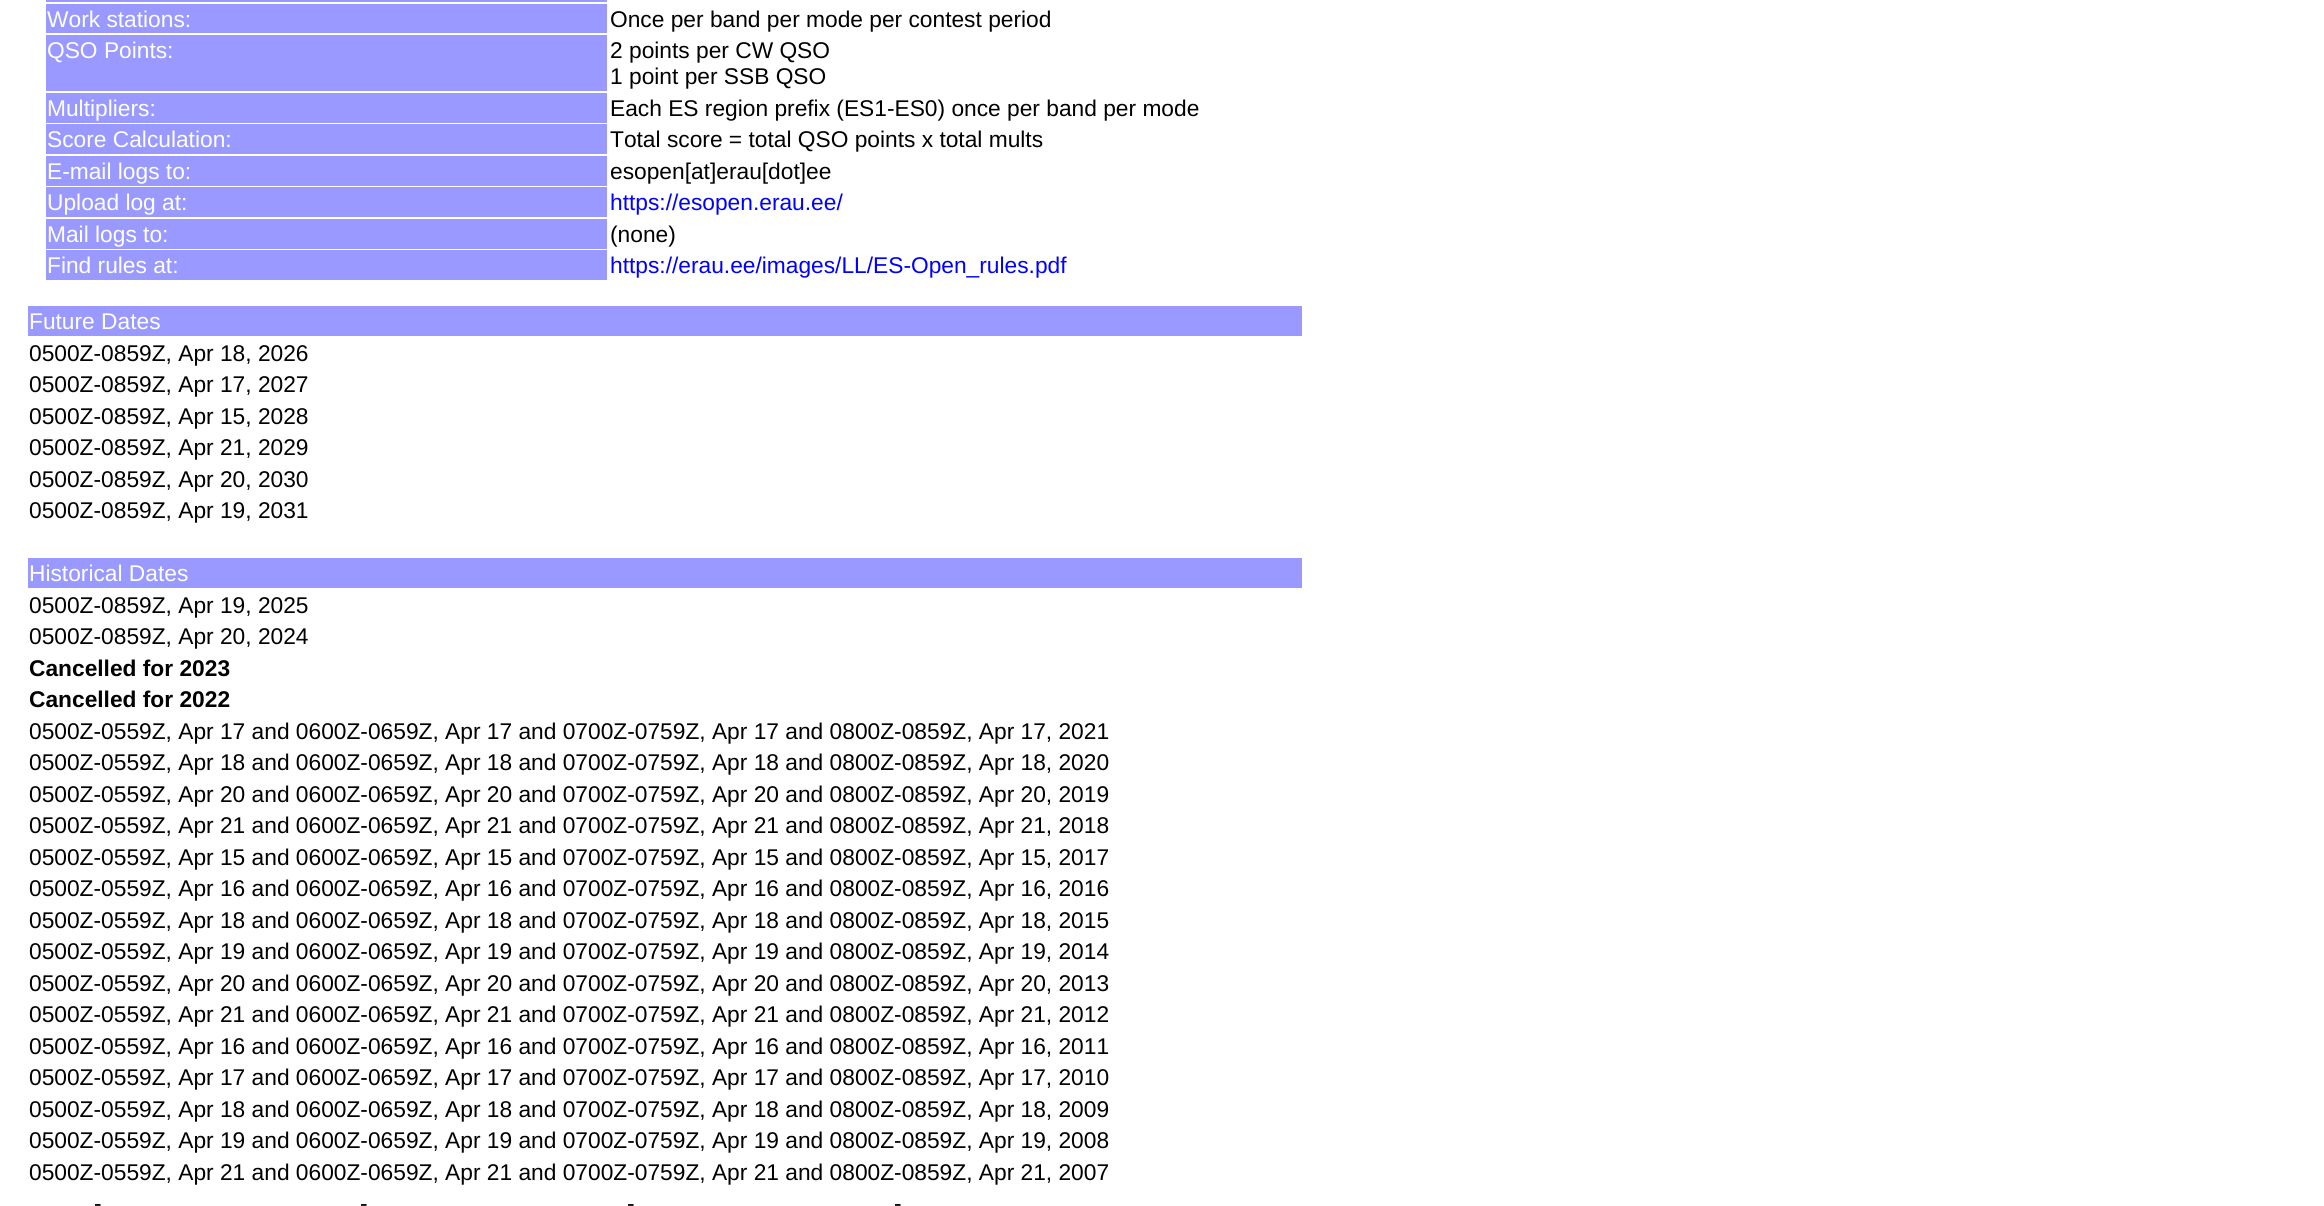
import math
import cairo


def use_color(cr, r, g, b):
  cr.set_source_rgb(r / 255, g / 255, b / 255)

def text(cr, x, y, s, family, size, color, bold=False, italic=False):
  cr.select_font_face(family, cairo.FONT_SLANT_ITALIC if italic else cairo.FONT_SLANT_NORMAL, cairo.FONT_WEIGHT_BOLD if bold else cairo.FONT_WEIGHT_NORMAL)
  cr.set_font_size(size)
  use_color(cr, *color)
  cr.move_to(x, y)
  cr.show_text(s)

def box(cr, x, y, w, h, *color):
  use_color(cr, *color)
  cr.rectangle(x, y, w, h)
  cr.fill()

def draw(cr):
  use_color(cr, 255, 255, 255)
  cr.paint()
  box(cr, 46, 0, 561, 2, 153, 153, 255)
  box(cr, 46, 4, 561, 29, 153, 153, 255)
  box(cr, 46, 35, 561, 56, 153, 153, 255)
  box(cr, 46, 93, 561, 30, 153, 153, 255)
  box(cr, 46, 124, 561, 30, 153, 153, 255)
  box(cr, 46, 156, 561, 30, 153, 153, 255)
  box(cr, 46, 187, 561, 30, 153, 153, 255)
  box(cr, 46, 219, 561, 30, 153, 153, 255)
  box(cr, 46, 250, 561, 30, 153, 153, 255)
  box(cr, 28, 306, 1274, 30, 153, 153, 255)
  box(cr, 28, 558, 1274, 30, 153, 153, 255)
  text(cr, 47, 27, "Work stations:", "Liberation Sans", 22.75, (255, 255, 255))
  text(cr, 610, 27, "Once per band per mode per contest period", "Liberation Sans", 22.75, (0, 0, 0))
  text(cr, 47, 58, "QSO Points:", "Liberation Sans", 22.75, (255, 255, 255))
  text(cr, 610, 58, "2 points per CW QSO", "Liberation Sans", 22.75, (0, 0, 0))
  text(cr, 610, 84, "1 point per SSB QSO", "Liberation Sans", 22.75, (0, 0, 0))
  text(cr, 47, 116, "Multipliers:", "Liberation Sans", 22.75, (255, 255, 255))
  text(cr, 610, 116, "Each ES region prefix (ES1-ES0) once per band per mode", "Liberation Sans", 22.75, (0, 0, 0))
  text(cr, 47, 147, "Score Calculation:", "Liberation Sans", 22.75, (255, 255, 255))
  text(cr, 610, 147, "Total score = total QSO points x total mults", "Liberation Sans", 22.75, (0, 0, 0))
  text(cr, 47, 179, "E-mail logs to:", "Liberation Sans", 22.75, (255, 255, 255))
  text(cr, 610, 179, "esopen[at]erau[dot]ee", "Liberation Sans", 22.75, (0, 0, 0))
  text(cr, 47, 210, "Upload log at:", "Liberation Sans", 22.75, (255, 255, 255))
  text(cr, 610, 210, "https://esopen.erau.ee/", "Liberation Sans", 22.75, (0, 0, 255))
  text(cr, 47, 242, "Mail logs to:", "Liberation Sans", 22.75, (255, 255, 255))
  text(cr, 610, 242, "(none)", "Liberation Sans", 22.75, (0, 0, 0))
  text(cr, 47, 273, "Find rules at:", "Liberation Sans", 22.75, (255, 255, 255))
  text(cr, 610, 273, "https://erau.ee/images/LL/ES-Open_rules.pdf", "Liberation Sans", 22.75, (0, 0, 255))
  text(cr, 29, 329, "Future Dates", "Liberation Sans", 22.75, (255, 255, 255))
  text(cr, 29, 361, "0500Z-0859Z, Apr 18, 2026", "Liberation Sans", 22.75, (0, 0, 0))
  text(cr, 29, 392, "0500Z-0859Z, Apr 17, 2027", "Liberation Sans", 22.75, (0, 0, 0))
  text(cr, 29, 424, "0500Z-0859Z, Apr 15, 2028", "Liberation Sans", 22.75, (0, 0, 0))
  text(cr, 29, 455, "0500Z-0859Z, Apr 21, 2029", "Liberation Sans", 22.75, (0, 0, 0))
  text(cr, 29, 487, "0500Z-0859Z, Apr 20, 2030", "Liberation Sans", 22.75, (0, 0, 0))
  text(cr, 29, 518, "0500Z-0859Z, Apr 19, 2031", "Liberation Sans", 22.75, (0, 0, 0))
  text(cr, 29, 581, "Historical Dates", "Liberation Sans", 22.75, (255, 255, 255))
  text(cr, 29, 613, "0500Z-0859Z, Apr 19, 2025", "Liberation Sans", 22.75, (0, 0, 0))
  text(cr, 29, 644, "0500Z-0859Z, Apr 20, 2024", "Liberation Sans", 22.75, (0, 0, 0))
  text(cr, 29, 676, "Cancelled for 2023", "Liberation Sans", 22.75, (0, 0, 0), bold=True)
  text(cr, 29, 707, "Cancelled for 2022", "Liberation Sans", 22.75, (0, 0, 0), bold=True)
  text(cr, 29, 739, "0500Z-0559Z, Apr 17 and 0600Z-0659Z, Apr 17 and 0700Z-0759Z, Apr 17 and 0800Z-0859Z, Apr 17, 2021", "Liberation Sans", 22.75, (0, 0, 0))
  text(cr, 29, 770, "0500Z-0559Z, Apr 18 and 0600Z-0659Z, Apr 18 and 0700Z-0759Z, Apr 18 and 0800Z-0859Z, Apr 18, 2020", "Liberation Sans", 22.75, (0, 0, 0))
  text(cr, 29, 802, "0500Z-0559Z, Apr 20 and 0600Z-0659Z, Apr 20 and 0700Z-0759Z, Apr 20 and 0800Z-0859Z, Apr 20, 2019", "Liberation Sans", 22.75, (0, 0, 0))
  text(cr, 29, 833, "0500Z-0559Z, Apr 21 and 0600Z-0659Z, Apr 21 and 0700Z-0759Z, Apr 21 and 0800Z-0859Z, Apr 21, 2018", "Liberation Sans", 22.75, (0, 0, 0))
  text(cr, 29, 865, "0500Z-0559Z, Apr 15 and 0600Z-0659Z, Apr 15 and 0700Z-0759Z, Apr 15 and 0800Z-0859Z, Apr 15, 2017", "Liberation Sans", 22.75, (0, 0, 0))
  text(cr, 29, 896, "0500Z-0559Z, Apr 16 and 0600Z-0659Z, Apr 16 and 0700Z-0759Z, Apr 16 and 0800Z-0859Z, Apr 16, 2016", "Liberation Sans", 22.75, (0, 0, 0))
  text(cr, 29, 928, "0500Z-0559Z, Apr 18 and 0600Z-0659Z, Apr 18 and 0700Z-0759Z, Apr 18 and 0800Z-0859Z, Apr 18, 2015", "Liberation Sans", 22.75, (0, 0, 0))
  text(cr, 29, 959, "0500Z-0559Z, Apr 19 and 0600Z-0659Z, Apr 19 and 0700Z-0759Z, Apr 19 and 0800Z-0859Z, Apr 19, 2014", "Liberation Sans", 22.75, (0, 0, 0))
  text(cr, 29, 991, "0500Z-0559Z, Apr 20 and 0600Z-0659Z, Apr 20 and 0700Z-0759Z, Apr 20 and 0800Z-0859Z, Apr 20, 2013", "Liberation Sans", 22.75, (0, 0, 0))
  text(cr, 29, 1022, "0500Z-0559Z, Apr 21 and 0600Z-0659Z, Apr 21 and 0700Z-0759Z, Apr 21 and 0800Z-0859Z, Apr 21, 2012", "Liberation Sans", 22.75, (0, 0, 0))
  text(cr, 29, 1054, "0500Z-0559Z, Apr 16 and 0600Z-0659Z, Apr 16 and 0700Z-0759Z, Apr 16 and 0800Z-0859Z, Apr 16, 2011", "Liberation Sans", 22.75, (0, 0, 0))
  text(cr, 29, 1085, "0500Z-0559Z, Apr 17 and 0600Z-0659Z, Apr 17 and 0700Z-0759Z, Apr 17 and 0800Z-0859Z, Apr 17, 2010", "Liberation Sans", 22.75, (0, 0, 0))
  text(cr, 29, 1117, "0500Z-0559Z, Apr 18 and 0600Z-0659Z, Apr 18 and 0700Z-0759Z, Apr 18 and 0800Z-0859Z, Apr 18, 2009", "Liberation Sans", 22.75, (0, 0, 0))
  text(cr, 29, 1148, "0500Z-0559Z, Apr 19 and 0600Z-0659Z, Apr 19 and 0700Z-0759Z, Apr 19 and 0800Z-0859Z, Apr 19, 2008", "Liberation Sans", 22.75, (0, 0, 0))
  text(cr, 29, 1180, "0500Z-0559Z, Apr 21 and 0600Z-0659Z, Apr 21 and 0700Z-0759Z, Apr 21 and 0800Z-0859Z, Apr 21, 2007", "Liberation Sans", 22.75, (0, 0, 0))
  text(cr, 94, 1211, "-", "Liberation Sans", 22.75, (0, 0, 0))
  text(cr, 360, 1211, "-", "Liberation Sans", 22.75, (0, 0, 0))
  text(cr, 627, 1211, "-", "Liberation Sans", 22.75, (0, 0, 0))
  text(cr, 894, 1211, "-", "Liberation Sans", 22.75, (0, 0, 0))


surface = cairo.ImageSurface(cairo.FORMAT_RGB24, 2324, 1206)
cr = cairo.Context(surface)
options = cairo.FontOptions()
options.set_hint_metrics(cairo.HINT_METRICS_OFF)
options.set_hint_style(cairo.HINT_STYLE_NONE)
cr.set_font_options(options)
cr.set_miter_limit(4)
draw(cr)
surface.write_to_png("out.png")
